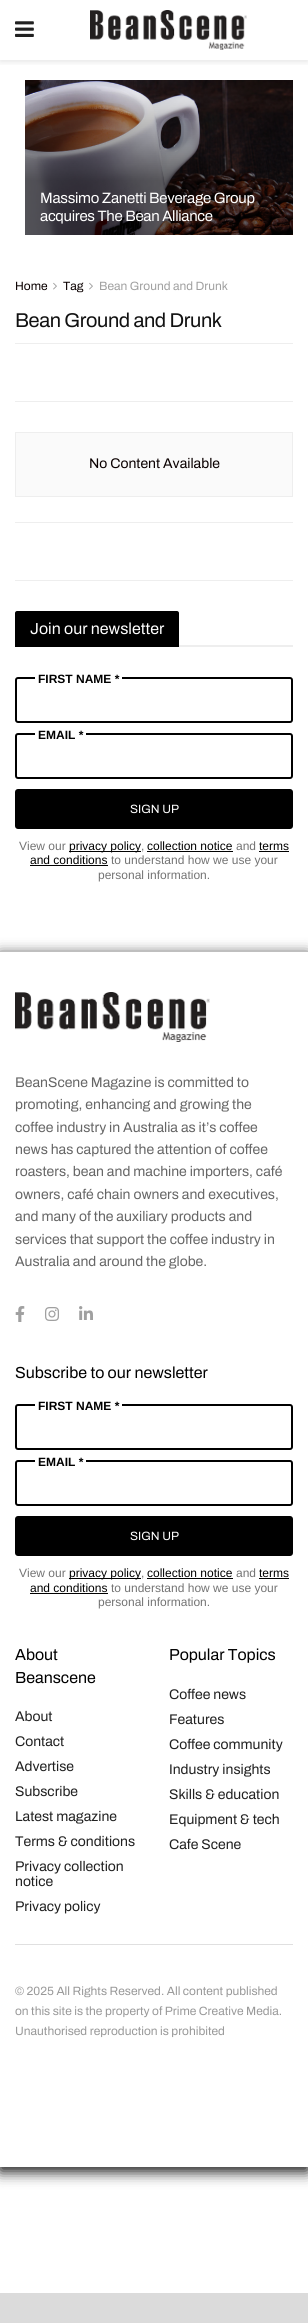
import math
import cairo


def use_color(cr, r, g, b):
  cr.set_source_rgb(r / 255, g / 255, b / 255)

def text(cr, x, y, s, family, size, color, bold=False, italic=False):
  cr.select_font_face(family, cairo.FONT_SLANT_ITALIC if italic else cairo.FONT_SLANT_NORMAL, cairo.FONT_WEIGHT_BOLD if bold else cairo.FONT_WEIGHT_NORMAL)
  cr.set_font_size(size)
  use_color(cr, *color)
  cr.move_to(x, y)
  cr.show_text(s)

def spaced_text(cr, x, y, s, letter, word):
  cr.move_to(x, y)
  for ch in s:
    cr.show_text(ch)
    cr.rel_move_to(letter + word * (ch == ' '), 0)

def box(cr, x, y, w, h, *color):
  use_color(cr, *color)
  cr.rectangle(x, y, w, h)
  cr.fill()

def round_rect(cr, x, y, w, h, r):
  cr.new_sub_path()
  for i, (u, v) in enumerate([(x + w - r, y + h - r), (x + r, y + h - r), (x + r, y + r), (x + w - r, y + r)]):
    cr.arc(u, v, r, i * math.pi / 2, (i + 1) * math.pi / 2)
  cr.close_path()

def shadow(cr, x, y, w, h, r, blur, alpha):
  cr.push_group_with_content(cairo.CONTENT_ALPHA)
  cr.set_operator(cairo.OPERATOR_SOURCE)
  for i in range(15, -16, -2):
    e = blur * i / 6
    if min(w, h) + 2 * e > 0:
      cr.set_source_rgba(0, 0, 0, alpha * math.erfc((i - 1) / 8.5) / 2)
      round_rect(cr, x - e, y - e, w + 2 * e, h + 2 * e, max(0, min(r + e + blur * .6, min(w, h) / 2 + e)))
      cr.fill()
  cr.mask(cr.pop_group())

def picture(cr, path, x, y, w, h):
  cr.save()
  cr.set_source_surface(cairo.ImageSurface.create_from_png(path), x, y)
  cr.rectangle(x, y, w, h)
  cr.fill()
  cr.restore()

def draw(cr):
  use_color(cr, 255, 255, 255)
  cr.paint()
  cr.save()
  cr.rectangle(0, 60, 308, 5)
  cr.clip()
  use_color(cr, 0, 0, 0)
  shadow(cr, 0, 2, 308, 60, 0, 3, 0.1)
  cr.restore()
  picture(cr, "img_01.png", 15, 21, 19, 16)
  picture(cr, "img_02.png", 90, 10, 157, 40)
  picture(cr, "img_03.png", 25, 80, 268, 155)
  picture(cr, "img_04.png", 53, 282, 4, 8)
  picture(cr, "img_04.png", 89, 282, 4, 8)
  box(cr, 15, 343, 278, 1, 238, 238, 238)
  box(cr, 15, 401, 278, 1, 238, 238, 238)
  use_color(cr, 250, 250, 250)
  cr.rectangle(15.5, 432.5, 277, 64)
  cr.fill_preserve()
  use_color(cr, 238, 238, 238)
  cr.set_line_width(1)
  cr.stroke()
  box(cr, 15, 522, 278, 1, 238, 238, 238)
  box(cr, 15, 580, 278, 1, 238, 238, 238)
  box(cr, 179, 645, 114, 2, 238, 238, 238)
  use_color(cr, 0, 0, 0)
  cr.new_path()
  cr.move_to(17, 611)
  cr.line_to(177, 611)
  cr.curve_to(178, 611, 179, 612, 179, 613)
  cr.line_to(179, 647)
  cr.line_to(15, 647)
  cr.line_to(15, 613)
  cr.curve_to(15, 612, 16, 611, 17, 611)
  cr.close_path()
  cr.fill()
  round_rect(cr, 16, 678, 276, 44, 2)
  cr.set_line_width(2)
  cr.stroke()
  box(cr, 35, 677, 87, 2, 255, 255, 255)
  round_rect(cr, 16, 734, 276, 44, 2)
  use_color(cr, 0, 0, 0)
  cr.stroke()
  box(cr, 35, 733, 51, 2, 255, 255, 255)
  use_color(cr, 0, 0, 0)
  round_rect(cr, 15, 789, 278, 40, 3)
  cr.fill()
  box(cr, 69, 851, 72, 1, 0, 0, 0)
  box(cr, 147, 851, 86, 1, 0, 0, 0)
  box(cr, 259, 851, 30, 1, 0, 0, 0)
  box(cr, 30, 865, 78, 1, 0, 0, 0)
  cr.save()
  cr.set_fill_rule(cairo.FILL_RULE_EVEN_ODD)
  cr.new_path()
  cr.move_to(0, 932)
  cr.line_to(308, 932)
  cr.line_to(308, 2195)
  cr.line_to(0, 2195)
  cr.close_path()
  cr.move_to(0, 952)
  cr.line_to(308, 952)
  cr.line_to(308, 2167)
  cr.line_to(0, 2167)
  cr.close_path()
  cr.clip()
  use_color(cr, 0, 0, 0)
  shadow(cr, 0, 956, 308, 1215, 0, 7.5, 1)
  cr.restore()
  picture(cr, "img_05.png", 15, 992, 195, 50)
  picture(cr, "img_06.png", 15, 1306, 10, 16)
  picture(cr, "img_07.png", 45, 1307, 14, 14)
  picture(cr, "img_08.png", 79, 1306, 14, 14)
  round_rect(cr, 16, 1405, 276, 44, 2)
  cr.stroke()
  box(cr, 35, 1404, 87, 2, 255, 255, 255)
  round_rect(cr, 16, 1461, 276, 44, 2)
  use_color(cr, 0, 0, 0)
  cr.stroke()
  box(cr, 35, 1460, 51, 2, 255, 255, 255)
  use_color(cr, 0, 0, 0)
  round_rect(cr, 15, 1516, 278, 40, 3)
  cr.fill()
  box(cr, 69, 1578, 72, 1, 0, 0, 0)
  box(cr, 147, 1578, 86, 1, 0, 0, 0)
  box(cr, 259, 1578, 30, 1, 0, 0, 0)
  box(cr, 30, 1593, 78, 1, 0, 0, 0)
  box(cr, 15, 1944, 278, 1, 224, 224, 224)
  box(cr, 0, 2293, 308, 30, 219, 219, 219)
  cr.select_font_face("Archivo SemiBold")
  cr.set_font_size(15)
  use_color(cr, 255, 255, 255)
  spaced_text(cr, 40, 203, "Massimo Zanetti Beverage Group", -0.3, 0)
  spaced_text(cr, 40, 221, "acquires The Bean Alliance", -0.3, 0)
  text(cr, 15, 290, "Home", "Archivo SemiBold", 12, (10, 0, 0))
  text(cr, 63, 290, "Tag", "Archivo SemiBold", 12, (10, 0, 0))
  text(cr, 99, 290, "Bean Ground and Drunk", "Archivo SemiBold", 12, (160, 160, 160))
  cr.set_font_size(20)
  use_color(cr, 17, 17, 17)
  spaced_text(cr, 15, 327, "Bean Ground and Drunk", -0.4, 0)
  text(cr, 89, 468, "No Content Available", "Archivo SemiBold", 14, (10, 0, 0))
  text(cr, 30, 634, "Join our newsletter", "Archivo SemiBold", 16, (255, 255, 255))
  text(cr, 38, 683, "FIRST NAME *", "Liberation Sans", 12, (0, 0, 0), bold=True)
  text(cr, 38, 739, "EMAIL *", "Liberation Sans", 12, (0, 0, 0), bold=True)
  text(cr, 130, 813, "SIGN UP", "Archivo SemiBold", 12, (255, 255, 255))
  text(cr, 19, 850, "View our", "Liberation Sans", 12, (115, 115, 115))
  text(cr, 69, 850, "privacy policy", "Liberation Sans", 12, (0, 0, 0))
  text(cr, 141, 850, ",", "Liberation Sans", 12, (115, 115, 115))
  text(cr, 147, 850, "collection notice", "Liberation Sans", 12, (0, 0, 0))
  text(cr, 236, 850, "and", "Liberation Sans", 12, (115, 115, 115))
  text(cr, 259, 850, "terms", "Liberation Sans", 12, (0, 0, 0))
  text(cr, 30, 864, "and conditions", "Liberation Sans", 12, (0, 0, 0))
  text(cr, 111, 864, "to understand how we use your", "Liberation Sans", 12, (115, 115, 115))
  text(cr, 98, 879, "personal information.", "Liberation Sans", 12, (115, 115, 115))
  text(cr, 15, 1087, "BeanScene Magazine is committed to", "Archivo SemiBold", 14, (102, 102, 102))
  text(cr, 15, 1109, "promoting, enhancing and growing the", "Archivo SemiBold", 14, (102, 102, 102))
  text(cr, 15, 1132, "coffee industry in Australia as it’s coffee", "Archivo SemiBold", 14, (102, 102, 102))
  text(cr, 15, 1154, "news has captured the attention of coffee", "Archivo SemiBold", 14, (102, 102, 102))
  text(cr, 15, 1176, "roasters, bean and machine importers, café", "Archivo SemiBold", 14, (102, 102, 102))
  text(cr, 15, 1199, "owners, café chain owners and executives,", "Archivo SemiBold", 14, (102, 102, 102))
  text(cr, 15, 1221, "and many of the auxiliary products and", "Archivo SemiBold", 14, (102, 102, 102))
  text(cr, 15, 1244, "services that support the coffee industry in", "Archivo SemiBold", 14, (102, 102, 102))
  text(cr, 15, 1266, "Australia and around the globe.", "Archivo SemiBold", 14, (102, 102, 102))
  text(cr, 15, 1378, "Subscribe to our newsletter", "Archivo SemiBold", 16, (0, 0, 0))
  text(cr, 38, 1410, "FIRST NAME *", "Liberation Sans", 12, (0, 0, 0), bold=True)
  text(cr, 38, 1466, "EMAIL *", "Liberation Sans", 12, (0, 0, 0), bold=True)
  text(cr, 130, 1540, "SIGN UP", "Archivo SemiBold", 12, (255, 255, 255))
  text(cr, 19, 1577, "View our", "Liberation Sans", 12, (115, 115, 115))
  text(cr, 69, 1577, "privacy policy", "Liberation Sans", 12, (0, 0, 0))
  text(cr, 141, 1577, ",", "Liberation Sans", 12, (115, 115, 115))
  text(cr, 147, 1577, "collection notice", "Liberation Sans", 12, (0, 0, 0))
  text(cr, 236, 1577, "and", "Liberation Sans", 12, (115, 115, 115))
  text(cr, 259, 1577, "terms", "Liberation Sans", 12, (0, 0, 0))
  text(cr, 30, 1592, "and conditions", "Liberation Sans", 12, (0, 0, 0))
  text(cr, 111, 1592, "to understand how we use your", "Liberation Sans", 12, (115, 115, 115))
  text(cr, 98, 1606, "personal information.", "Liberation Sans", 12, (115, 115, 115))
  text(cr, 15, 1660, "About", "Archivo SemiBold", 16, (0, 0, 0))
  text(cr, 15, 1683, "Beanscene", "Archivo SemiBold", 16, (0, 0, 0))
  text(cr, 15, 1721, "About", "Archivo SemiBold", 14, (33, 33, 33))
  text(cr, 15, 1746, "Contact", "Archivo SemiBold", 14, (33, 33, 33))
  text(cr, 15, 1771, "Advertise", "Archivo SemiBold", 14, (33, 33, 33))
  text(cr, 15, 1796, "Subscribe", "Archivo SemiBold", 14, (33, 33, 33))
  text(cr, 15, 1821, "Latest magazine", "Archivo SemiBold", 14, (33, 33, 33))
  text(cr, 15, 1846, "Terms & conditions", "Archivo SemiBold", 14, (33, 33, 33))
  text(cr, 15, 1871, "Privacy collection", "Archivo SemiBold", 14, (33, 33, 33))
  text(cr, 15, 1886, "notice", "Archivo SemiBold", 14, (33, 33, 33))
  text(cr, 15, 1911, "Privacy policy", "Archivo SemiBold", 14, (33, 33, 33))
  text(cr, 169, 1660, "Popular Topics", "Archivo SemiBold", 16, (0, 0, 0))
  text(cr, 169, 1699, "Coffee news", "Archivo SemiBold", 14, (33, 33, 33))
  text(cr, 169, 1724, "Features", "Archivo SemiBold", 14, (33, 33, 33))
  text(cr, 169, 1749, "Coffee community", "Archivo SemiBold", 14, (33, 33, 33))
  text(cr, 169, 1774, "Industry insights", "Archivo SemiBold", 14, (33, 33, 33))
  text(cr, 169, 1799, "Skills & education", "Archivo SemiBold", 14, (33, 33, 33))
  text(cr, 169, 1824, "Equipment & tech", "Archivo SemiBold", 14, (33, 33, 33))
  text(cr, 169, 1849, "Cafe Scene", "Archivo SemiBold", 14, (33, 33, 33))
  text(cr, 15, 1995, "© 2025 All Rights Reserved. All content published", "Archivo SemiBold", 12, (153, 153, 153))
  text(cr, 15, 2015, "on this site is the property of Prime Creative Media.", "Archivo SemiBold", 12, (153, 153, 153))
  text(cr, 15, 2035, "Unauthorised reproduction is prohibited", "Archivo SemiBold", 12, (153, 153, 153))


surface = cairo.ImageSurface(cairo.FORMAT_RGB24, 308, 2323)
cr = cairo.Context(surface)
options = cairo.FontOptions()
options.set_hint_metrics(cairo.HINT_METRICS_OFF)
options.set_hint_style(cairo.HINT_STYLE_NONE)
cr.set_font_options(options)
cr.set_miter_limit(4)
draw(cr)
surface.write_to_png("out.png")
